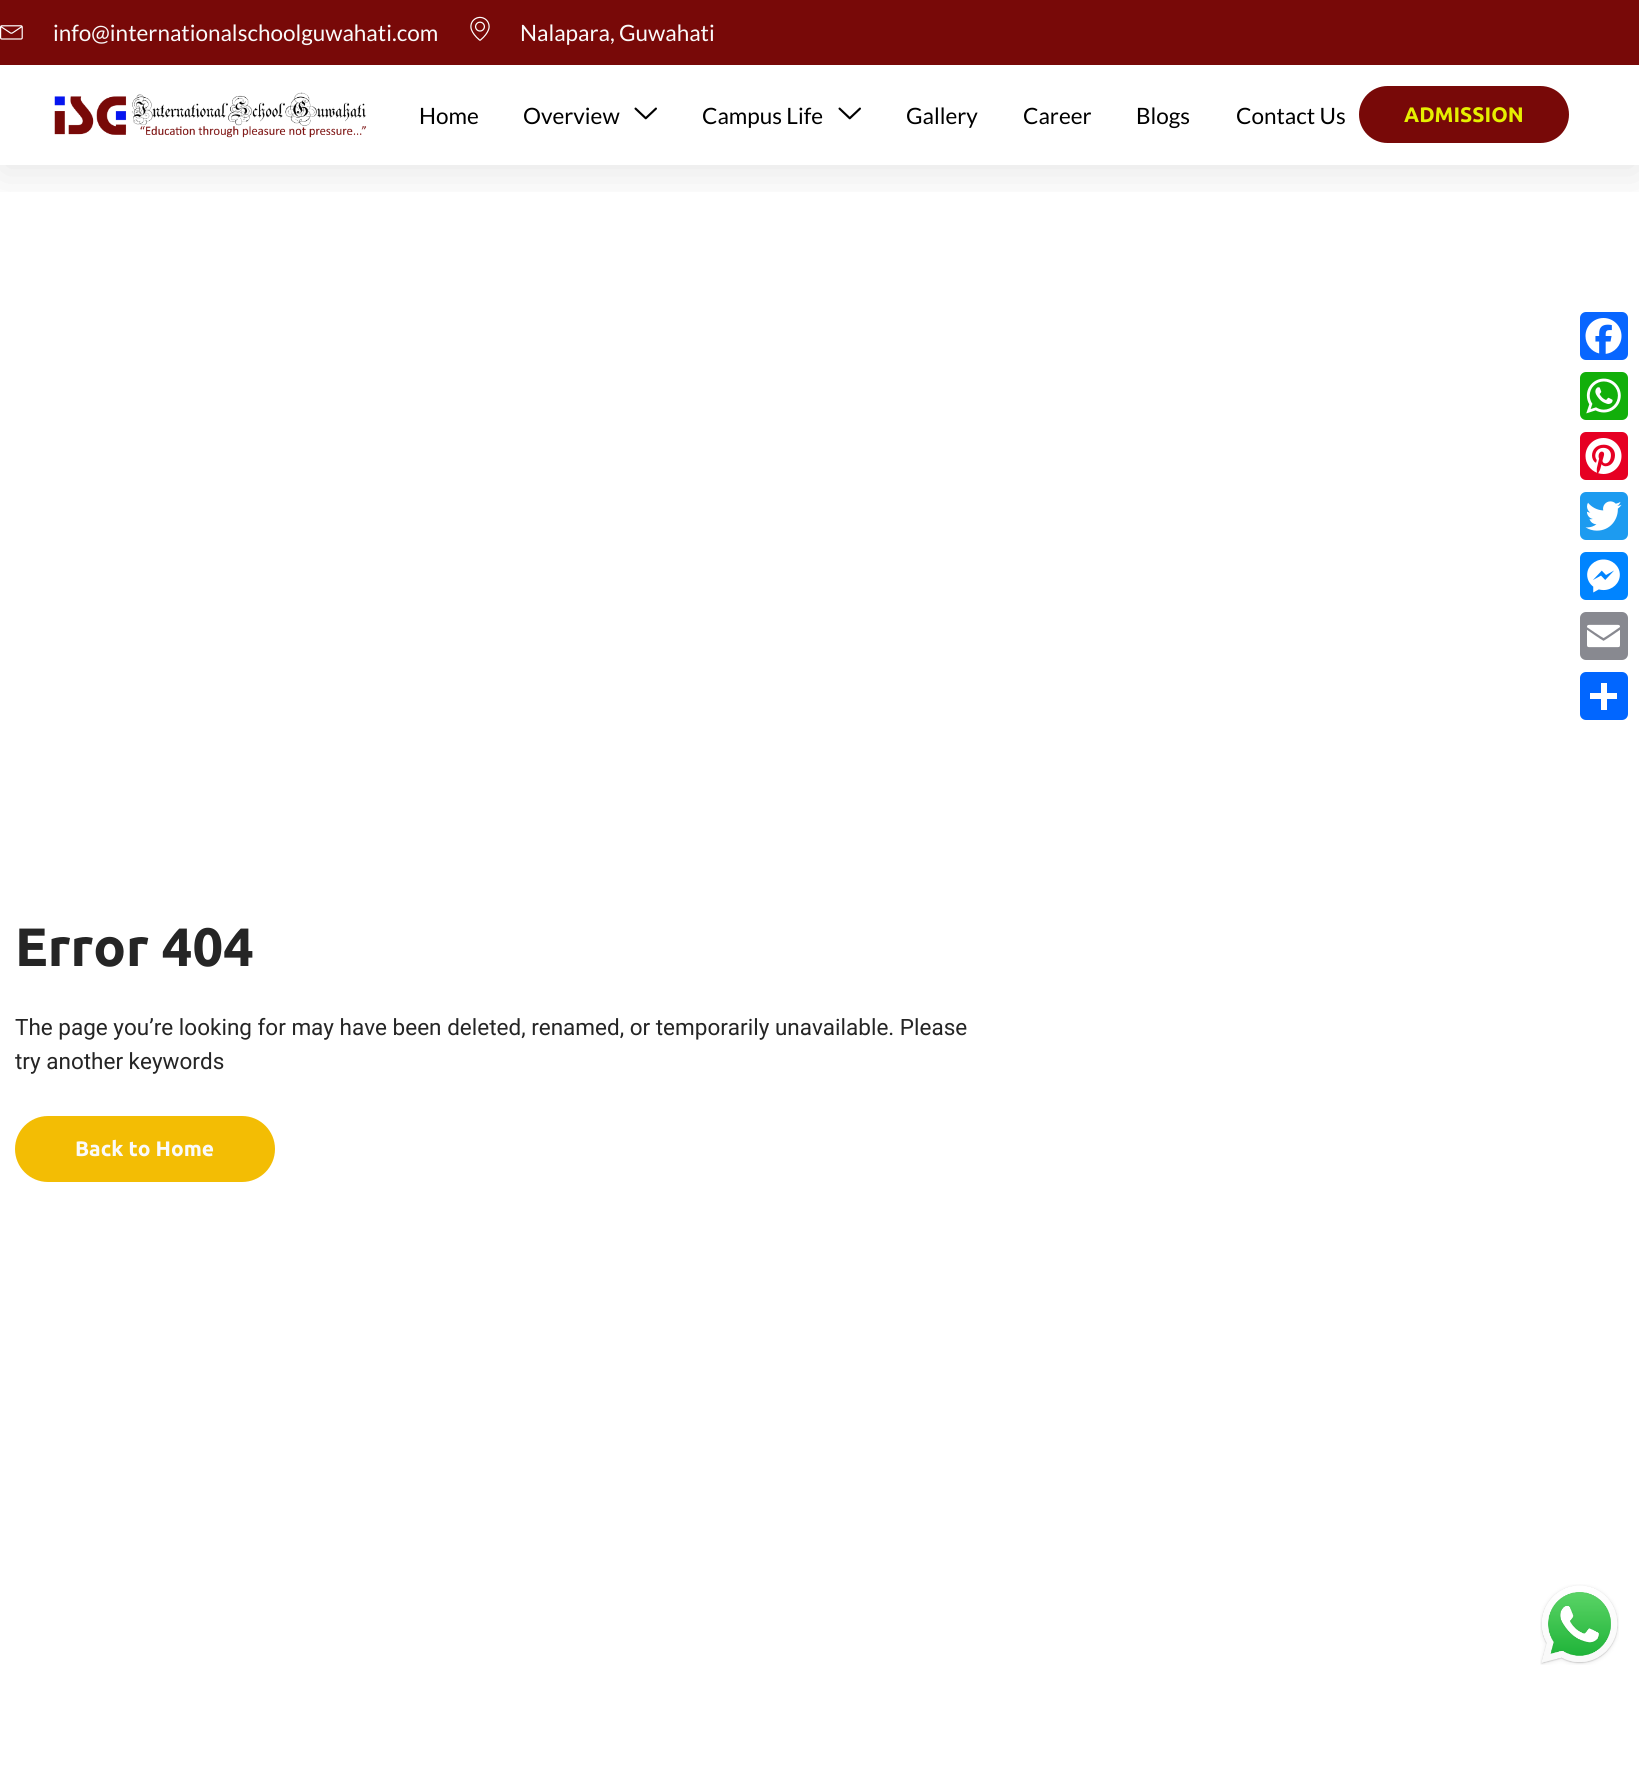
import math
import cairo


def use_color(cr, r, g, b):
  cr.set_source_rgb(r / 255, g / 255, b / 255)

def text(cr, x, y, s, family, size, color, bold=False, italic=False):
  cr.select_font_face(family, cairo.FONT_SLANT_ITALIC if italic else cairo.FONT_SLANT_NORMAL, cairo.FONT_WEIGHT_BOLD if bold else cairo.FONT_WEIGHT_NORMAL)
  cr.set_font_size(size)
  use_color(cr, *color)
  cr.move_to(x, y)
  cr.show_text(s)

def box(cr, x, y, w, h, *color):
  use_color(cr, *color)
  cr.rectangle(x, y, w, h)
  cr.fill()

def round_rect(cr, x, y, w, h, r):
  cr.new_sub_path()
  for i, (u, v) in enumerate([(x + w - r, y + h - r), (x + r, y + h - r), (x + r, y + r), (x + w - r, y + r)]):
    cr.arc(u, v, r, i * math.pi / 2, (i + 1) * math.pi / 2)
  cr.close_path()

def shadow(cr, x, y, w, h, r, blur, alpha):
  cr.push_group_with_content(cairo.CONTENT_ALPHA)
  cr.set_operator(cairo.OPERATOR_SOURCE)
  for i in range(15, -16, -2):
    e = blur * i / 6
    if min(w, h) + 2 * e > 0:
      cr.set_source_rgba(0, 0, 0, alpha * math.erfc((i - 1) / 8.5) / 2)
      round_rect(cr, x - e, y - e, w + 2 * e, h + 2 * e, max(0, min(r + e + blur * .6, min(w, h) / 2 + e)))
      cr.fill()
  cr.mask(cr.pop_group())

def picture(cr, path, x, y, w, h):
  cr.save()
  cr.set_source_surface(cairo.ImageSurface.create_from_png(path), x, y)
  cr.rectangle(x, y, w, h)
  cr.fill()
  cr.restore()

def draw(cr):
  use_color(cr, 255, 255, 255)
  cr.paint()
  cr.save()
  cr.rectangle(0, 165, 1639, 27)
  cr.clip()
  use_color(cr, 0, 0, 0)
  shadow(cr, 0, 8, 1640, 165, 0, 22.5, 0.1)
  cr.restore()
  box(cr, 0, 0, 1639, 65, 120, 9, 8)
  picture(cr, "img_01.png", 0, 25, 23, 15)
  picture(cr, "img_02.png", 470, 16, 20, 25)
  picture(cr, "img_03.png", 54, 92, 313, 46)
  picture(cr, "img_04.png", 634, 107, 23, 13)
  picture(cr, "img_04.png", 838, 107, 23, 13)
  round_rect(cr, 1359, 86, 210, 57, 28.5)
  cr.fill()
  use_color(cr, 8, 102, 255)
  round_rect(cr, 1580, 312, 48, 48, 6)
  cr.fill()
  picture(cr, "img_05.png", 1585, 318, 37, 36)
  use_color(cr, 18, 175, 10)
  round_rect(cr, 1580, 372, 48, 48, 6)
  cr.fill()
  picture(cr, "img_06.png", 1586, 378, 35, 36)
  use_color(cr, 230, 0, 35)
  round_rect(cr, 1580, 432, 48, 48, 6)
  cr.fill()
  picture(cr, "img_07.png", 1585, 438, 37, 36)
  use_color(cr, 29, 155, 240)
  round_rect(cr, 1580, 492, 48, 48, 6)
  cr.fill()
  picture(cr, "img_08.png", 1585, 501, 37, 30)
  use_color(cr, 0, 132, 255)
  round_rect(cr, 1580, 552, 48, 48, 6)
  cr.fill()
  picture(cr, "img_09.png", 1587, 559, 33, 34)
  use_color(cr, 136, 137, 144)
  round_rect(cr, 1580, 612, 48, 48, 6)
  cr.fill()
  picture(cr, "img_10.png", 1587, 624, 33, 24)
  use_color(cr, 1, 102, 255)
  round_rect(cr, 1580, 672, 48, 48, 6)
  cr.fill()
  box(cr, 1601, 683, 6, 27, 255, 255, 255)
  box(cr, 1590, 693, 27, 6, 255, 255, 255)
  use_color(cr, 243, 189, 4)
  round_rect(cr, 15, 1116, 260, 66, 33)
  cr.fill()
  picture(cr, "img_11.png", 1540, 1584, 79, 81)
  text(cr, 53, 41, "info@internationalschoolguwahati.com", "Lato", 22.5, (250, 250, 250))
  text(cr, 520, 41, "Nalapara, Guwahati", "Lato", 22.5, (250, 250, 250))
  text(cr, 419, 124, "Home", "Lato", 22.5, (0, 0, 0))
  text(cr, 523, 124, "Overview", "Lato", 22.5, (0, 0, 0))
  text(cr, 702, 124, "Campus Life", "Lato", 22.5, (0, 0, 0))
  text(cr, 906, 124, "Gallery", "Lato", 22.5, (0, 0, 0))
  text(cr, 1023, 124, "Career", "Lato", 22.5, (0, 0, 0))
  text(cr, 1136, 124, "Blogs", "Lato", 22.5, (0, 0, 0))
  text(cr, 1236, 124, "Contact Us", "Lato", 22.5, (0, 0, 0))
  text(cr, 1404, 122, "ADMISSION", "Ubuntu", 21, (230, 240, 0), bold=True)
  text(cr, 15, 966, "Error 404", "Ubuntu", 54, (37, 37, 37), bold=True)
  text(cr, 15, 1035, "The page you’re looking for may have been deleted, renamed, or temporarily unavailable. Please", "Roboto", 22.5, (37, 37, 37))
  text(cr, 15, 1069, "try another keywords", "Roboto", 22.5, (37, 37, 37))
  text(cr, 75, 1156, "Back to Home", "Ubuntu", 21, (250, 250, 250), bold=True)


surface = cairo.ImageSurface(cairo.FORMAT_RGB24, 1639, 1769)
cr = cairo.Context(surface)
options = cairo.FontOptions()
options.set_hint_metrics(cairo.HINT_METRICS_OFF)
options.set_hint_style(cairo.HINT_STYLE_NONE)
cr.set_font_options(options)
cr.set_miter_limit(4)
draw(cr)
surface.write_to_png("out.png")
